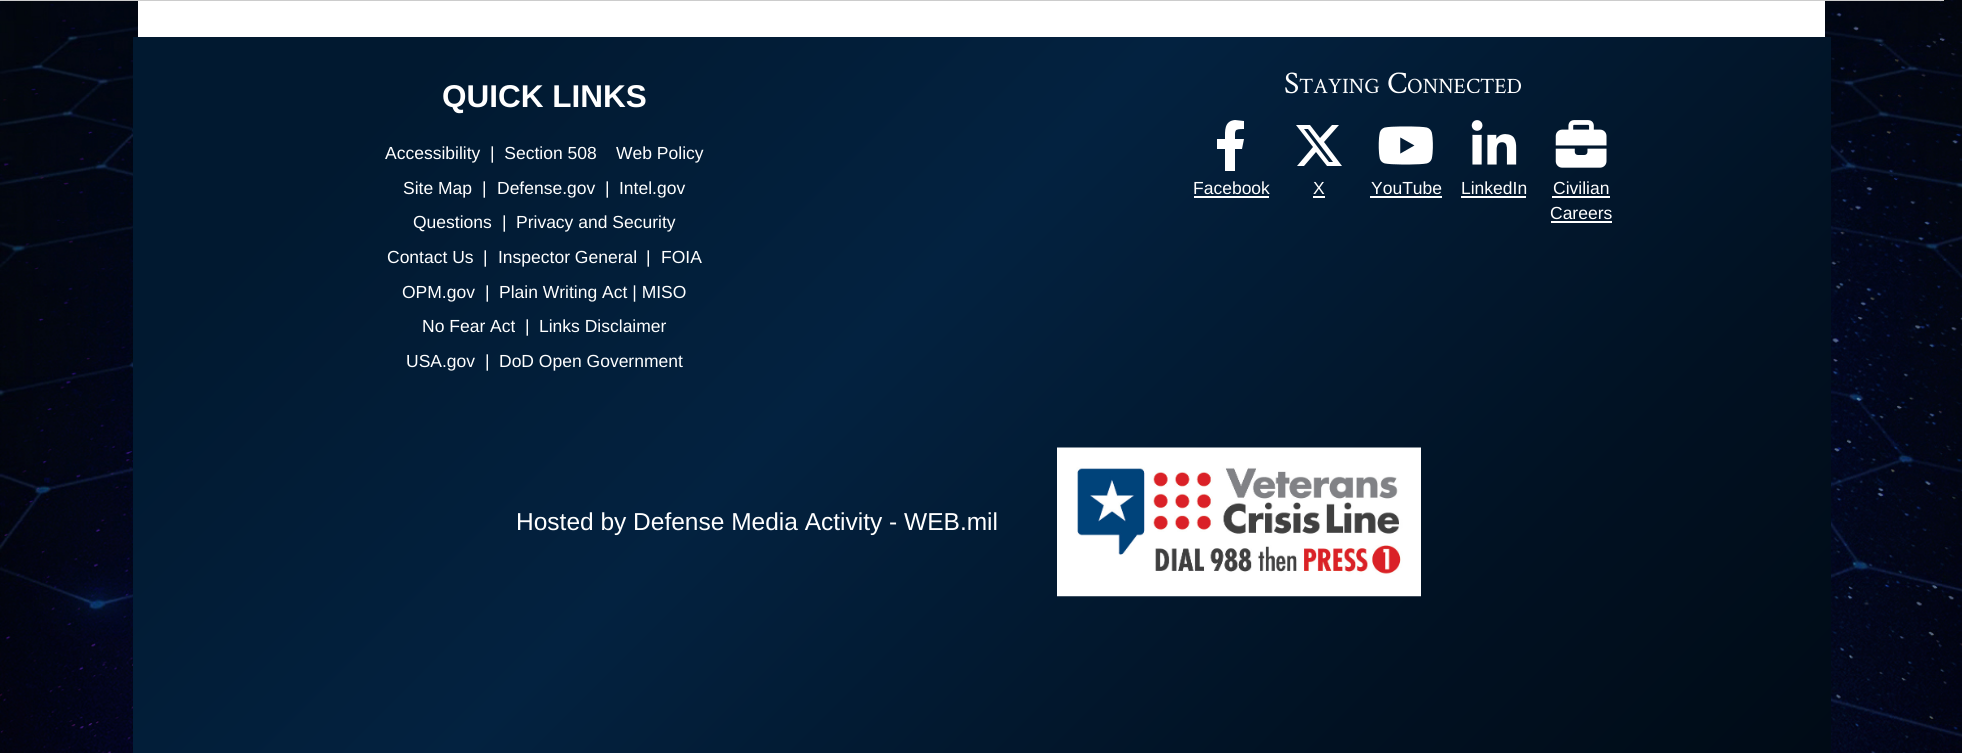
import math
import cairo


def use_color(cr, r, g, b):
  cr.set_source_rgb(r / 255, g / 255, b / 255)

def text(cr, x, y, s, family, size, color, bold=False, italic=False):
  cr.select_font_face(family, cairo.FONT_SLANT_ITALIC if italic else cairo.FONT_SLANT_NORMAL, cairo.FONT_WEIGHT_BOLD if bold else cairo.FONT_WEIGHT_NORMAL)
  cr.set_font_size(size)
  use_color(cr, *color)
  cr.move_to(x, y)
  cr.show_text(s)

def box(cr, x, y, w, h, *color):
  use_color(cr, *color)
  cr.rectangle(x, y, w, h)
  cr.fill()

def picture(cr, path, x, y, w, h):
  cr.save()
  cr.set_source_surface(cairo.ImageSurface.create_from_png(path), x, y)
  cr.rectangle(x, y, w, h)
  cr.fill()
  cr.restore()

def draw(cr):
  use_color(cr, 255, 255, 255)
  cr.paint()
  picture(cr, "img_01.png", 0, 0, 1962, 753)
  box(cr, 0, 0, 1944, 1, 204, 204, 204)
  box(cr, 138, 1, 1687, 36, 255, 255, 255)
  gradient = cairo.LinearGradient(378, -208, 1586, 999)
  gradient.add_color_stop_rgba(0, 0.004, 0.098, 0.188, 1)
  gradient.add_color_stop_rgba(0.13, 0.004, 0.098, 0.188, 1)
  gradient.add_color_stop_rgba(0.43, 0.012, 0.133, 0.251, 1)
  gradient.add_color_stop_rgba(0.79, 0.004, 0.067, 0.133, 1)
  gradient.add_color_stop_rgba(1, 0, 0.043, 0.086, 1)
  cr.set_source(gradient)
  cr.rectangle(133, 37, 1698, 716)
  cr.fill()
  use_color(cr, 255, 255, 255)
  cr.new_path()
  cr.move_to(1242, 149)
  cr.line_to(1244, 139)
  cr.line_to(1235, 139)
  cr.curve_to(1235, 130, 1234, 129, 1244, 129)
  cr.line_to(1244, 121)
  cr.line_to(1235, 120)
  cr.curve_to(1224, 121, 1225, 131, 1225, 139)
  cr.line_to(1217, 139)
  cr.line_to(1217, 149)
  cr.line_to(1225, 149)
  cr.line_to(1225, 171)
  cr.line_to(1235, 171)
  cr.line_to(1235, 149)
  cr.close_path()
  cr.fill()
  box(cr, 1194, 196, 75, 2, 255, 255, 255)
  cr.new_path()
  cr.move_to(1332, 125)
  cr.line_to(1339, 125)
  cr.line_to(1324, 142)
  cr.line_to(1342, 166)
  cr.line_to(1327, 166)
  cr.line_to(1316, 152)
  cr.line_to(1304, 166)
  cr.line_to(1297, 166)
  cr.line_to(1313, 147)
  cr.line_to(1296, 125)
  cr.line_to(1310, 125)
  cr.line_to(1320, 138)
  cr.close_path()
  cr.move_to(1329, 162)
  cr.line_to(1333, 162)
  cr.line_to(1308, 129)
  cr.line_to(1304, 129)
  cr.close_path()
  cr.fill()
  box(cr, 1313, 196, 12, 2, 255, 255, 255)
  picture(cr, "img_02.png", 1378, 126, 55, 39)
  box(cr, 1370, 196, 72, 2, 255, 255, 255)
  picture(cr, "img_03.png", 1471, 120, 46, 45)
  box(cr, 1461, 196, 65, 2, 255, 255, 255)
  picture(cr, "img_04.png", 1555, 120, 52, 48)
  box(cr, 1552, 196, 58, 2, 255, 255, 255)
  box(cr, 1551, 221, 61, 2, 255, 255, 255)
  picture(cr, "img_05.png", 1057, 447, 364, 150)
  text(cr, 442, 107, "QUICK LINKS", "Liberation Sans", 31.5, (255, 255, 255), bold=True)
  text(cr, 385, 159, "Accessibility  |  Section 508", "Liberation Sans", 17.5, (255, 255, 255))
  text(cr, 616, 159, "Web Policy", "Liberation Sans", 17.5, (255, 255, 255))
  text(cr, 403, 194, "Site Map", "Liberation Sans", 17.5, (255, 255, 255))
  text(cr, 482, 194, "|", "Liberation Sans", 17.5, (255, 255, 255))
  text(cr, 497, 194, "Defense.gov", "Liberation Sans", 17.5, (255, 255, 255))
  text(cr, 605, 194, "|", "Liberation Sans", 17.5, (255, 255, 255))
  text(cr, 619, 194, "Intel.gov", "Liberation Sans", 17.5, (255, 255, 255))
  text(cr, 413, 228, "Questions", "Liberation Sans", 17.5, (255, 255, 255))
  text(cr, 502, 228, "|", "Liberation Sans", 17.5, (255, 255, 255))
  text(cr, 516, 228, "Privacy and Security", "Liberation Sans", 17.5, (255, 255, 255))
  text(cr, 387, 263, "Contact Us", "Liberation Sans", 17.5, (255, 255, 255))
  text(cr, 483, 263, "|", "Liberation Sans", 17.5, (255, 255, 255))
  text(cr, 498, 263, "Inspector General", "Liberation Sans", 17.5, (255, 255, 255))
  text(cr, 646, 263, "|", "Liberation Sans", 17.5, (255, 255, 255))
  text(cr, 661, 263, "FOIA", "Liberation Sans", 17.5, (255, 255, 255))
  text(cr, 402, 298, "OPM.gov", "Liberation Sans", 17.5, (255, 255, 255))
  text(cr, 485, 298, "|", "Liberation Sans", 17.5, (255, 255, 255))
  text(cr, 499, 298, "Plain Writing Act | MISO", "Liberation Sans", 17.5, (255, 255, 255))
  text(cr, 422, 332, "No Fear Act", "Liberation Sans", 17.5, (255, 255, 255))
  text(cr, 525, 332, "|", "Liberation Sans", 17.5, (255, 255, 255))
  text(cr, 539, 332, "Links Disclaimer", "Liberation Sans", 17.5, (255, 255, 255))
  text(cr, 406, 367, "USA.gov", "Liberation Sans", 17.5, (255, 255, 255))
  text(cr, 485, 367, "|", "Liberation Sans", 17.5, (255, 255, 255))
  text(cr, 499, 367, "DoD Open Government", "Liberation Sans", 17.5, (255, 255, 255))
  text(cr, 1284, 93, "S", "Crimson Text", 31.5, (255, 255, 255))
  text(cr, 1299, 93, "TAYING", "Crimson Text", 22, (255, 255, 255))
  text(cr, 1387, 93, "C", "Crimson Text", 31.5, (255, 255, 255))
  text(cr, 1407, 93, "ONNECTED", "Crimson Text", 22, (255, 255, 255))
  text(cr, 1193, 194, "Facebook", "Liberation Sans", 17.5, (255, 255, 255))
  text(cr, 1313, 194, "X", "Liberation Sans", 17.5, (255, 255, 255))
  text(cr, 1371, 194, "YouTube", "Liberation Sans", 17.5, (255, 255, 255))
  text(cr, 1461, 194, "LinkedIn", "Liberation Sans", 17.5, (255, 255, 255))
  text(cr, 1553, 194, "Civilian", "Liberation Sans", 17.5, (255, 255, 255))
  text(cr, 1550, 219, "Careers", "Liberation Sans", 17.5, (255, 255, 255))
  text(cr, 516, 530, "Hosted by Defense Media Activity - WEB.mil", "Liberation Sans", 24.5, (255, 255, 255))


surface = cairo.ImageSurface(cairo.FORMAT_RGB24, 1962, 753)
cr = cairo.Context(surface)
options = cairo.FontOptions()
options.set_hint_metrics(cairo.HINT_METRICS_OFF)
options.set_hint_style(cairo.HINT_STYLE_NONE)
cr.set_font_options(options)
cr.set_miter_limit(4)
draw(cr)
surface.write_to_png("out.png")
